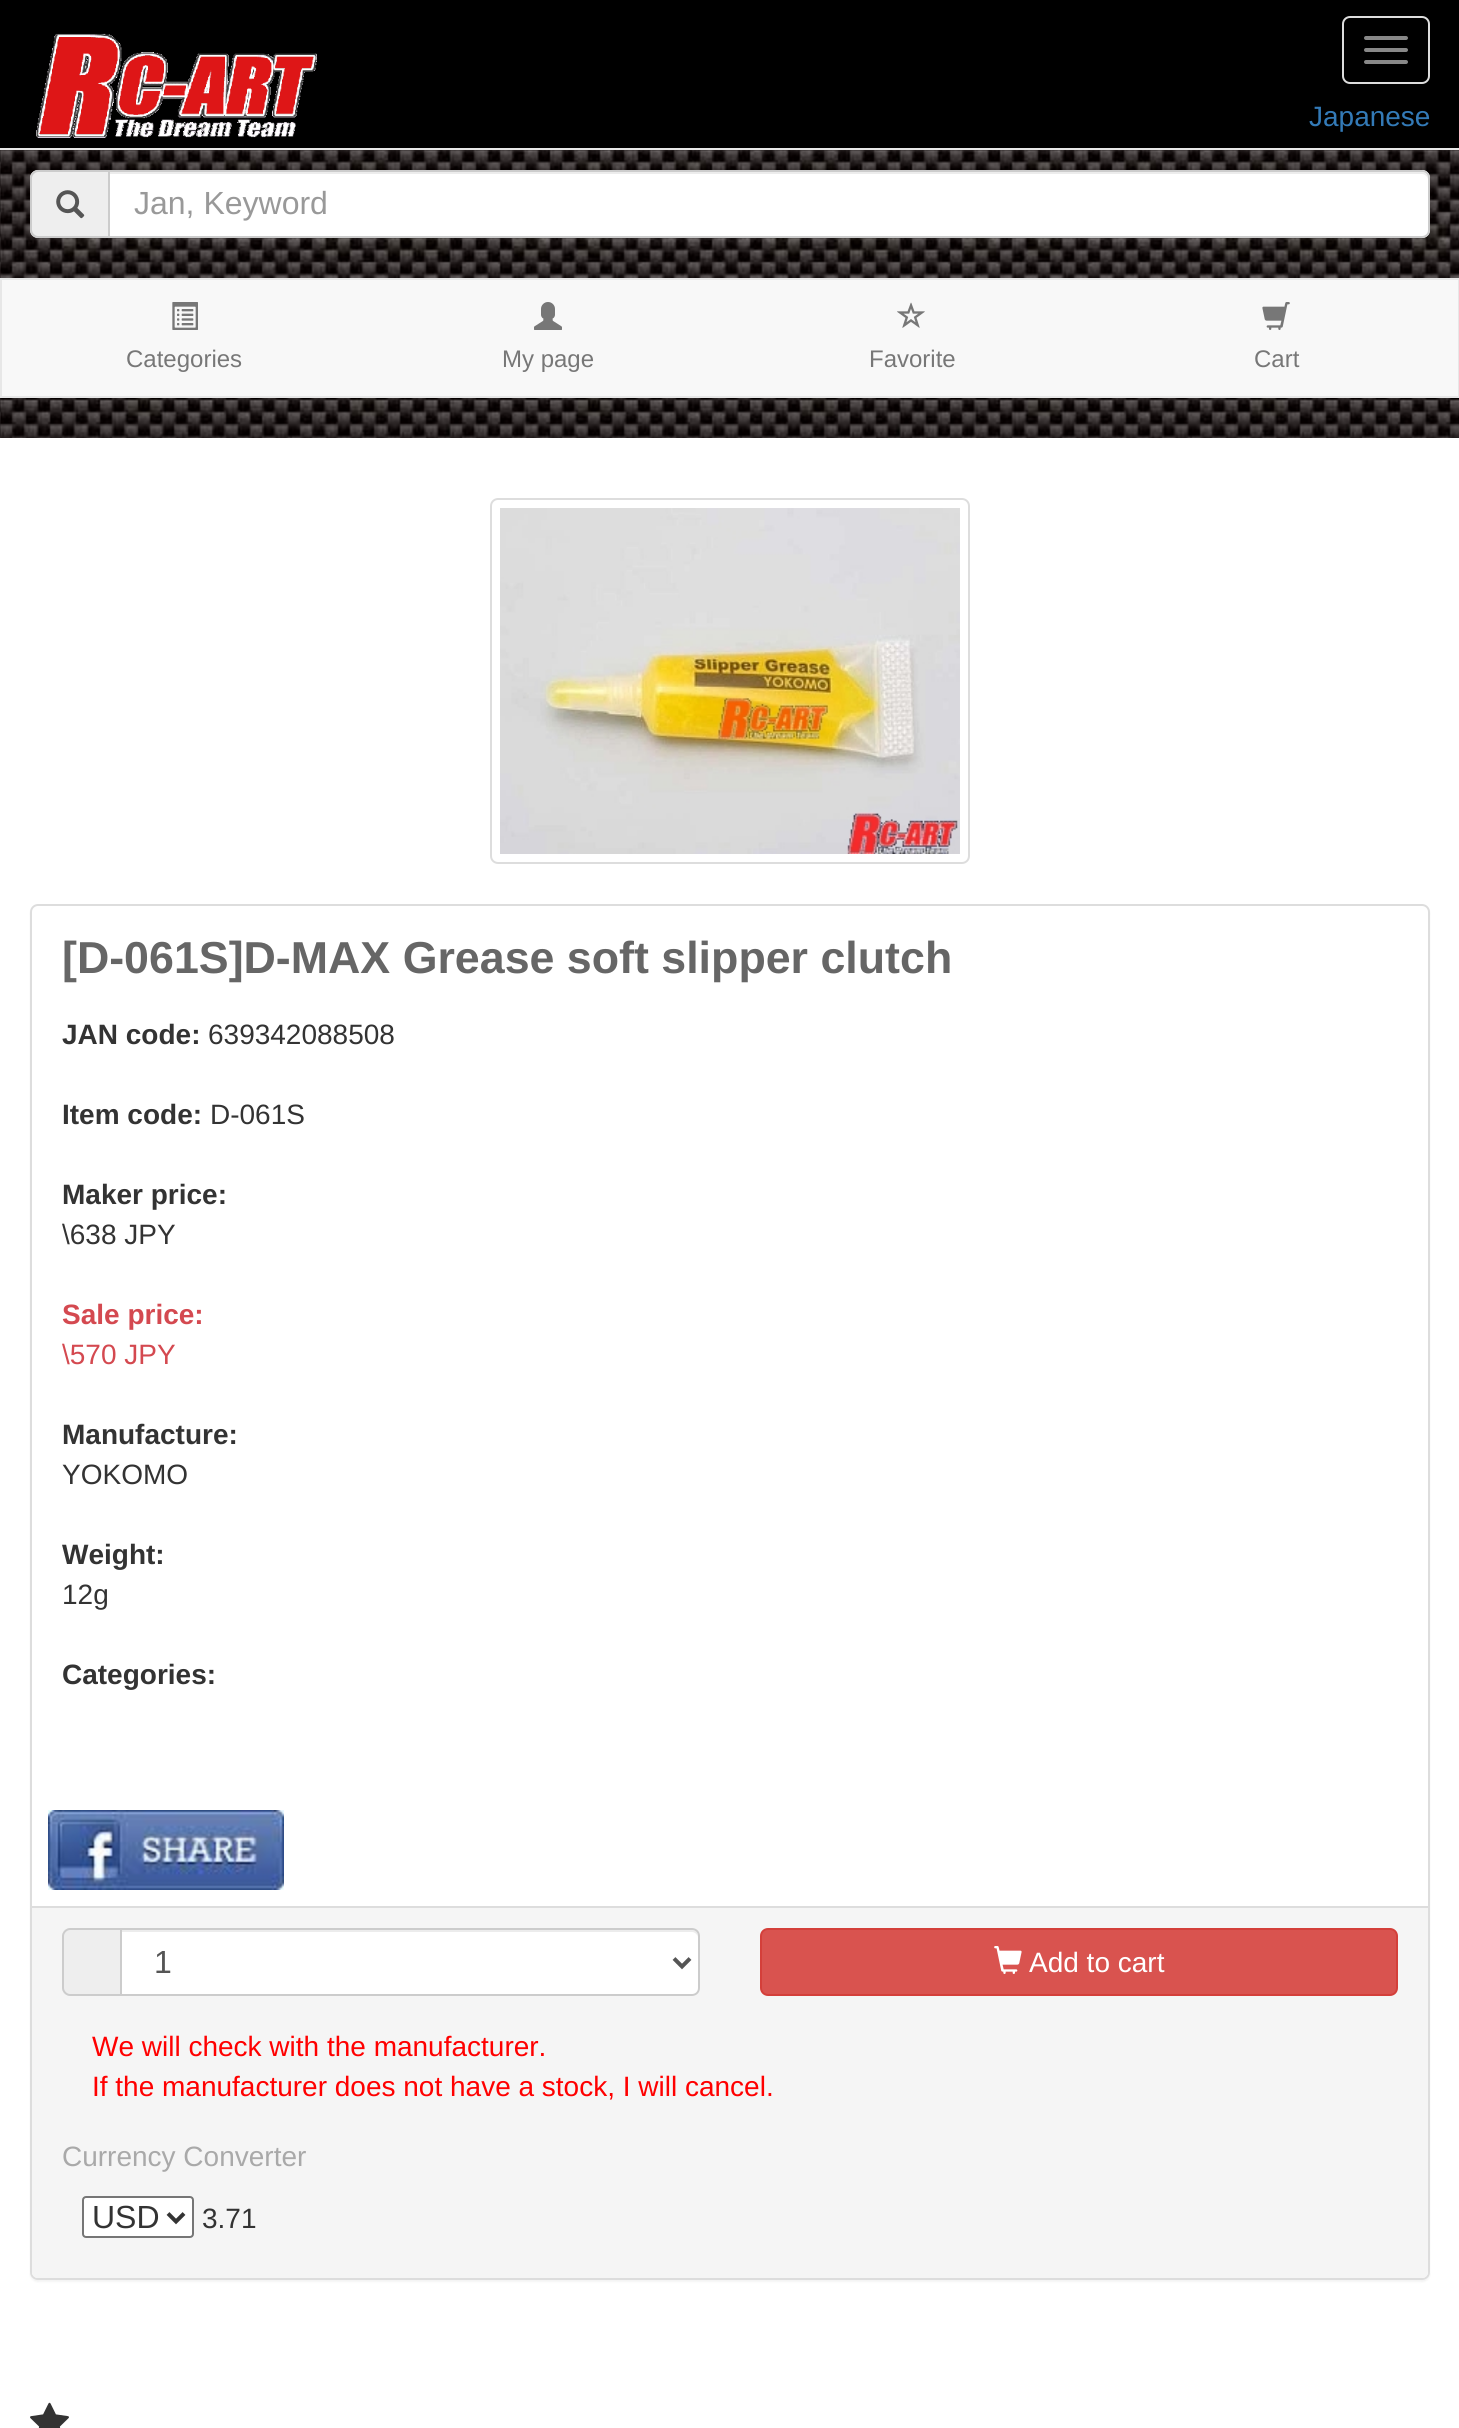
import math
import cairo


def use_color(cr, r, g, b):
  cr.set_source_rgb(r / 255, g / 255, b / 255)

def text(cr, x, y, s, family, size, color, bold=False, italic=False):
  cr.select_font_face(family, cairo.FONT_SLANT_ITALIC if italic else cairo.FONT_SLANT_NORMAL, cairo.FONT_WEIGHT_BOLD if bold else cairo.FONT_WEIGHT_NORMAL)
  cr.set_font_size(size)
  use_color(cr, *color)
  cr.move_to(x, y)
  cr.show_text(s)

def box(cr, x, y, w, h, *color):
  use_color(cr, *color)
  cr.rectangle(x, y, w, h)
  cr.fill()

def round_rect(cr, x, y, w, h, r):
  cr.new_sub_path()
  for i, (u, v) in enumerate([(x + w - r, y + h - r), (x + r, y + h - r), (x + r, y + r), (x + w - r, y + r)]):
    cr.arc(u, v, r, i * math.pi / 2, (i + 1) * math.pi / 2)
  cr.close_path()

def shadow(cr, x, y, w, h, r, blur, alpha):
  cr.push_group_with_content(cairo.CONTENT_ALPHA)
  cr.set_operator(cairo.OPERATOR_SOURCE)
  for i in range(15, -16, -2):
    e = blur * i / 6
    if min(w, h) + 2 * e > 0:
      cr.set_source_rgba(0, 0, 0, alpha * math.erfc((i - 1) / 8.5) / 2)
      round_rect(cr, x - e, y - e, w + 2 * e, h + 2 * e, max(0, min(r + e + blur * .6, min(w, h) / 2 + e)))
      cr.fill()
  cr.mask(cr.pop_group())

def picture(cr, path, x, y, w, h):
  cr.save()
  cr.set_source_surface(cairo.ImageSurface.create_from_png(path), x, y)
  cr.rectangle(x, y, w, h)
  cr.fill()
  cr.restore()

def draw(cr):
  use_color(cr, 255, 255, 255)
  cr.paint()
  picture(cr, "img_01.png", 0, 150, 1459, 288)
  box(cr, 0, 0, 1459, 148, 0, 0, 0)
  box(cr, 0, 148, 1459, 2, 231, 231, 231)
  picture(cr, "img_02.png", 36, 33, 281, 105)
  round_rect(cr, 1343, 17, 86, 66, 7)
  use_color(cr, 221, 221, 221)
  cr.stroke()
  use_color(cr, 136, 136, 136)
  round_rect(cr, 1364, 36, 44, 4, 2)
  cr.fill()
  round_rect(cr, 1364, 48, 44, 4, 2)
  cr.fill()
  round_rect(cr, 1364, 60, 44, 4, 2)
  cr.fill()
  use_color(cr, 238, 238, 238)
  cr.new_path()
  cr.move_to(38, 170)
  cr.line_to(108, 170)
  cr.line_to(108, 238)
  cr.line_to(38, 238)
  cr.curve_to(33.5, 238, 30, 234.5, 30, 230)
  cr.line_to(30, 178)
  cr.curve_to(30, 173.5, 33.5, 170, 38, 170)
  cr.close_path()
  cr.fill()
  use_color(cr, 204, 204, 204)
  cr.set_fill_rule(cairo.FILL_RULE_EVEN_ODD)
  cr.new_path()
  cr.move_to(38, 170)
  cr.line_to(108, 170)
  cr.line_to(108, 238)
  cr.line_to(38, 238)
  cr.curve_to(34, 238, 30, 234, 30, 230)
  cr.line_to(30, 178)
  cr.curve_to(30, 174, 34, 170, 38, 170)
  cr.close_path()
  cr.move_to(38, 172)
  cr.line_to(108, 172)
  cr.line_to(108, 236)
  cr.line_to(38, 236)
  cr.curve_to(35, 236, 32, 233, 32, 230)
  cr.line_to(32, 178)
  cr.curve_to(32, 175, 35, 172, 38, 172)
  cr.close_path()
  cr.fill()
  picture(cr, "img_03.png", 56, 190, 29, 29)
  use_color(cr, 255, 255, 255)
  cr.new_path()
  cr.move_to(108, 170)
  cr.line_to(1422, 170)
  cr.curve_to(1426.5, 170, 1430, 173.5, 1430, 178)
  cr.line_to(1430, 230)
  cr.curve_to(1430, 234.5, 1426.5, 238, 1422, 238)
  cr.line_to(108, 238)
  cr.close_path()
  cr.fill()
  use_color(cr, 236, 236, 236)
  cr.set_fill_rule(cairo.FILL_RULE_WINDING)
  cr.new_path()
  cr.move_to(110, 174)
  cr.line_to(1422, 174)
  cr.curve_to(1425, 174, 1428, 177, 1428, 180)
  cr.line_to(1428, 178)
  cr.curve_to(1428, 175, 1425, 172, 1422, 172)
  cr.line_to(110, 172)
  cr.close_path()
  cr.fill()
  cr.new_path()
  cr.move_to(109, 171)
  cr.line_to(1422, 171)
  cr.curve_to(1426, 171, 1429, 174, 1429, 178)
  cr.line_to(1429, 230)
  cr.curve_to(1429, 234, 1426, 237, 1422, 237)
  cr.line_to(109, 237)
  cr.close_path()
  use_color(cr, 204, 204, 204)
  cr.stroke()
  use_color(cr, 248, 248, 248)
  cr.rectangle(1, 279, 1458, 118)
  cr.fill_preserve()
  use_color(cr, 231, 231, 231)
  cr.stroke()
  picture(cr, "img_04.png", 172, 302, 26, 28)
  picture(cr, "img_05.png", 534, 302, 28, 28)
  picture(cr, "img_06.png", 897, 302, 28, 26)
  picture(cr, "img_07.png", 1262, 302, 28, 28)
  round_rect(cr, 491, 499, 478, 364, 7)
  use_color(cr, 221, 221, 221)
  cr.stroke()
  picture(cr, "img_08.png", 500, 508, 460, 346)
  use_color(cr, 0, 0, 0)
  shadow(cr, 30, 906, 1400, 1376, 8, 1, 0.05)
  use_color(cr, 255, 255, 255)
  round_rect(cr, 31, 905, 1398, 1374, 7)
  cr.fill_preserve()
  use_color(cr, 221, 221, 221)
  cr.stroke()
  picture(cr, "img_09.png", 48, 1810, 236, 80)
  use_color(cr, 245, 245, 245)
  cr.new_path()
  cr.move_to(32, 1906)
  cr.line_to(1428, 1906)
  cr.line_to(1428, 2272)
  cr.curve_to(1428, 2275.5, 1425.5, 2278, 1422, 2278)
  cr.line_to(38, 2278)
  cr.curve_to(34.5, 2278, 32, 2275.5, 32, 2272)
  cr.close_path()
  cr.fill()
  box(cr, 32, 1906, 1396, 2, 221, 221, 221)
  use_color(cr, 238, 238, 238)
  cr.new_path()
  cr.move_to(70, 1928)
  cr.line_to(120, 1928)
  cr.line_to(120, 1996)
  cr.line_to(70, 1996)
  cr.curve_to(65.5, 1996, 62, 1992.5, 62, 1988)
  cr.line_to(62, 1936)
  cr.curve_to(62, 1931.5, 65.5, 1928, 70, 1928)
  cr.close_path()
  cr.fill()
  use_color(cr, 204, 204, 204)
  cr.set_fill_rule(cairo.FILL_RULE_EVEN_ODD)
  cr.new_path()
  cr.move_to(70, 1928)
  cr.line_to(120, 1928)
  cr.line_to(120, 1996)
  cr.line_to(70, 1996)
  cr.curve_to(66, 1996, 62, 1992, 62, 1988)
  cr.line_to(62, 1936)
  cr.curve_to(62, 1932, 66, 1928, 70, 1928)
  cr.close_path()
  cr.move_to(70, 1930)
  cr.line_to(120, 1930)
  cr.line_to(120, 1994)
  cr.line_to(70, 1994)
  cr.curve_to(67, 1994, 64, 1991, 64, 1988)
  cr.line_to(64, 1936)
  cr.curve_to(64, 1933, 67, 1930, 70, 1930)
  cr.close_path()
  cr.fill()
  use_color(cr, 255, 255, 255)
  cr.new_path()
  cr.move_to(120, 1928)
  cr.line_to(692, 1928)
  cr.curve_to(696.5, 1928, 700, 1931.5, 700, 1936)
  cr.line_to(700, 1988)
  cr.curve_to(700, 1992.5, 696.5, 1996, 692, 1996)
  cr.line_to(120, 1996)
  cr.close_path()
  cr.fill()
  use_color(cr, 236, 236, 236)
  cr.set_fill_rule(cairo.FILL_RULE_WINDING)
  cr.new_path()
  cr.move_to(122, 1932)
  cr.line_to(692, 1932)
  cr.curve_to(695, 1932, 698, 1935, 698, 1938)
  cr.curve_to(698, 1934, 697, 1930, 692, 1930)
  cr.line_to(122, 1930)
  cr.close_path()
  cr.fill()
  cr.new_path()
  cr.move_to(121, 1929)
  cr.line_to(692, 1929)
  cr.curve_to(696, 1929, 699, 1932, 699, 1936)
  cr.line_to(699, 1988)
  cr.curve_to(699, 1992, 696, 1995, 692, 1995)
  cr.line_to(121, 1995)
  cr.close_path()
  use_color(cr, 204, 204, 204)
  cr.stroke()
  cr.new_path()
  cr.move_to(674, 1958.5)
  cr.line_to(682, 1966.5)
  cr.line_to(690, 1958.5)
  use_color(cr, 85, 85, 85)
  cr.set_line_width(4)
  cr.stroke()
  use_color(cr, 217, 83, 79)
  round_rect(cr, 761, 1929, 636, 66, 7)
  cr.fill_preserve()
  use_color(cr, 212, 63, 58)
  cr.set_line_width(2)
  cr.stroke()
  picture(cr, "img_10.png", 994, 1946, 28, 28)
  use_color(cr, 255, 255, 255)
  round_rect(cr, 83, 2197, 110, 40, 3)
  cr.fill_preserve()
  use_color(cr, 118, 118, 118)
  cr.stroke()
  cr.new_path()
  cr.move_to(168, 2213.5)
  cr.line_to(176, 2221.5)
  cr.line_to(184, 2213.5)
  use_color(cr, 51, 51, 51)
  cr.set_line_width(4)
  cr.stroke()
  picture(cr, "img_11.png", 30, 2402, 39, 26)
  text(cr, 1309, 126, "Japanese", "Liberation Sans", 28, (51, 122, 183))
  text(cr, 134, 214, "Jan, Keyword", "Liberation Sans", 32, (153, 153, 153))
  text(cr, 126, 367, "Categories", "Liberation Sans", 24, (119, 119, 119))
  text(cr, 502, 367, "My page", "Liberation Sans", 24, (119, 119, 119))
  text(cr, 869, 367, "Favorite", "Liberation Sans", 24, (119, 119, 119))
  text(cr, 1254, 367, "Cart", "Liberation Sans", 24, (119, 119, 119))
  text(cr, 62, 973, "[D-061S]D-MAX Grease soft slipper clutch", "Liberation Sans", 44.75, (102, 102, 102), bold=True)
  text(cr, 62, 1044, "JAN code:", "Liberation Sans", 28, (51, 51, 51), bold=True)
  text(cr, 208, 1044, "639342088508", "Liberation Sans", 28, (51, 51, 51))
  text(cr, 62, 1124, "Item code:", "Liberation Sans", 28, (51, 51, 51), bold=True)
  text(cr, 210, 1124, "D-061S", "Liberation Sans", 28, (51, 51, 51))
  text(cr, 62, 1204, "Maker price:", "Liberation Sans", 28, (51, 51, 51), bold=True)
  text(cr, 62, 1244, "\\638 JPY", "Liberation Sans", 28, (51, 51, 51))
  text(cr, 62, 1324, "Sale price:", "Liberation Sans", 28, (212, 73, 80), bold=True)
  text(cr, 62, 1364, "\\570 JPY", "Liberation Sans", 28, (212, 73, 80))
  text(cr, 62, 1444, "Manufacture:", "Liberation Sans", 28, (51, 51, 51), bold=True)
  text(cr, 62, 1484, "YOKOMO", "Liberation Sans", 28, (51, 51, 51))
  text(cr, 62, 1564, "Weight:", "Liberation Sans", 28, (51, 51, 51), bold=True)
  text(cr, 62, 1604, "12g", "Liberation Sans", 28, (51, 51, 51))
  text(cr, 62, 1684, "Categories:", "Liberation Sans", 28, (51, 51, 51), bold=True)
  text(cr, 154, 1973, "1", "Liberation Sans", 32, (85, 85, 85))
  text(cr, 1029, 1972, "Add to cart", "Liberation Sans", 28, (255, 255, 255))
  text(cr, 92, 2056, "We will check with the manufacturer.", "Liberation Sans", 28, (255, 0, 0))
  text(cr, 92, 2096, "If the manufacturer does not have a stock, I will cancel.", "Liberation Sans", 28, (255, 0, 0))
  text(cr, 62, 2166, "Currency Converter", "Liberation Sans", 28, (169, 169, 169))
  text(cr, 92, 2228, "USD", "Liberation Sans", 32, (51, 51, 51))
  text(cr, 202, 2228, "3.71", "Liberation Sans", 28, (51, 51, 51))


surface = cairo.ImageSurface(cairo.FORMAT_RGB24, 1459, 2428)
cr = cairo.Context(surface)
options = cairo.FontOptions()
options.set_hint_metrics(cairo.HINT_METRICS_OFF)
options.set_hint_style(cairo.HINT_STYLE_NONE)
cr.set_font_options(options)
cr.set_miter_limit(4)
draw(cr)
surface.write_to_png("out.png")
